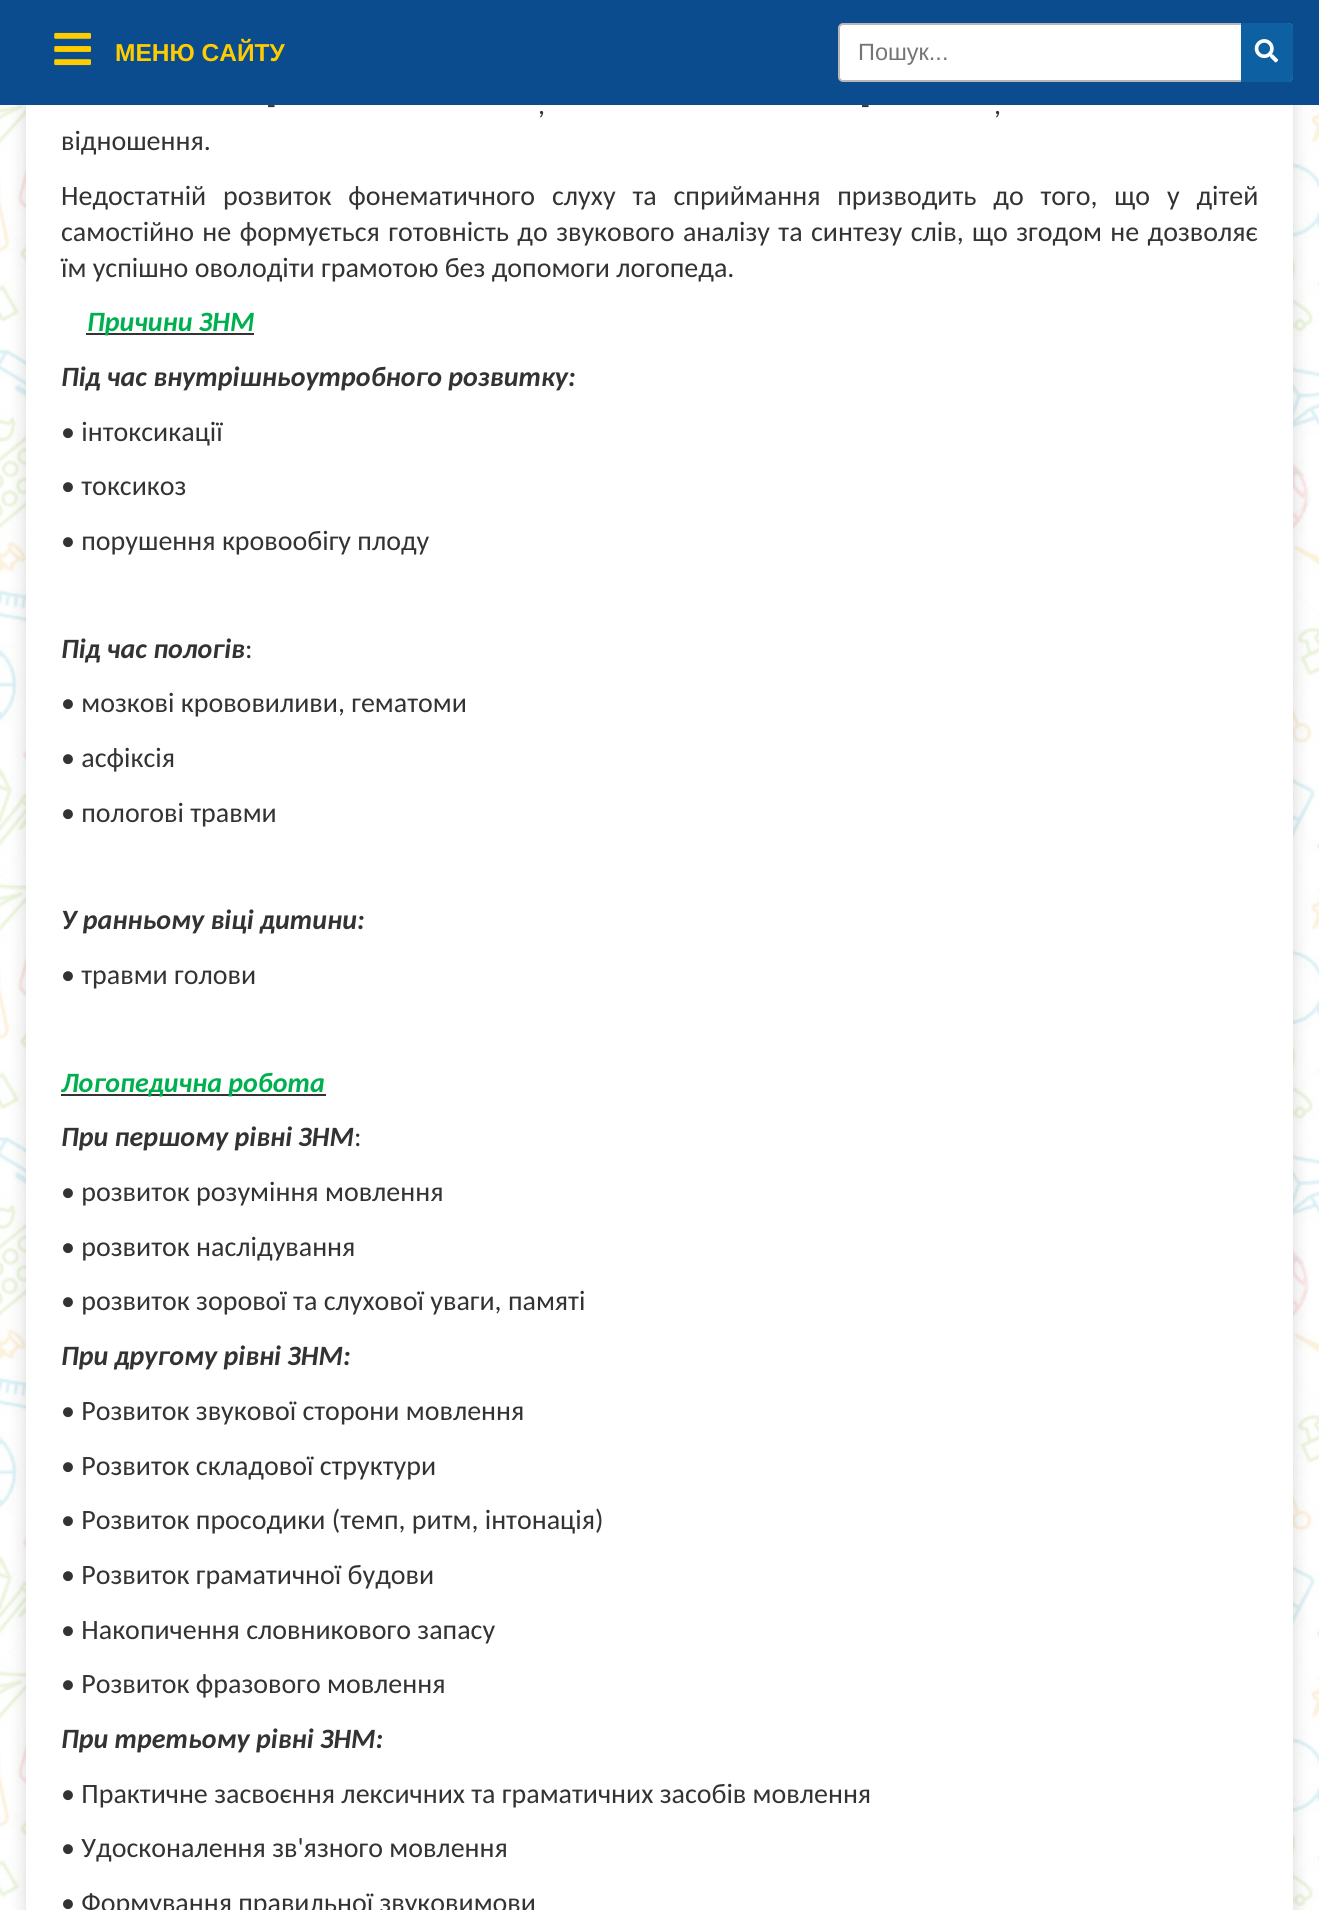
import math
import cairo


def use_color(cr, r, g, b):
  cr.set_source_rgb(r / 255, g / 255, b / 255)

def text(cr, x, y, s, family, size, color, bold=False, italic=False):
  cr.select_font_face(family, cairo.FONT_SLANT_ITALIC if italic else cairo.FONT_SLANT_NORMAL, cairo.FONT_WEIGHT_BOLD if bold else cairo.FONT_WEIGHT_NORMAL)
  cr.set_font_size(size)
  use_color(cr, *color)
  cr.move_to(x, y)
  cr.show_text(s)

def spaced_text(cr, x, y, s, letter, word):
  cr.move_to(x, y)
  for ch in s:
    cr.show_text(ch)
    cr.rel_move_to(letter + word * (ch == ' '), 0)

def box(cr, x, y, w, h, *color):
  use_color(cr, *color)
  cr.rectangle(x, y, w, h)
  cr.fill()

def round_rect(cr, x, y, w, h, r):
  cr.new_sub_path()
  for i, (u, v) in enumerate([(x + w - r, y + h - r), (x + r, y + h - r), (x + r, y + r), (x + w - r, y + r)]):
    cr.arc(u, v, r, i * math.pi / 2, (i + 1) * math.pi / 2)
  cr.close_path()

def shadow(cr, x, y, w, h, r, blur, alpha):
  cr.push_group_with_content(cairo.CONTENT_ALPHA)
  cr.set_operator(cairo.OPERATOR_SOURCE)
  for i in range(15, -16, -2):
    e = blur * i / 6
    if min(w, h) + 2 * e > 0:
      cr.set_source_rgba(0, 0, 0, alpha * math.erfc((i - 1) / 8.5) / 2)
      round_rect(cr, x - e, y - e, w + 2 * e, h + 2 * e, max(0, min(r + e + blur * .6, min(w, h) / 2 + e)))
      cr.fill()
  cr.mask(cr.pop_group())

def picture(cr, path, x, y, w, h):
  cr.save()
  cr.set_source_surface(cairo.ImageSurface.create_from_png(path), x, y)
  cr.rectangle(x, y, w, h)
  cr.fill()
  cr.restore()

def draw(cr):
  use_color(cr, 255, 255, 255)
  cr.paint()
  picture(cr, "img_01.png", 0, 105, 1319, 1805)
  use_color(cr, 0, 0, 0)
  shadow(cr, 26, -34, 1267, 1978, 7, 9, 0.15)
  box(cr, 0, 0, 1319, 105, 10, 76, 141)
  picture(cr, "img_02.png", 54, 32, 37, 34)
  use_color(cr, 255, 255, 255)
  round_rect(cr, 839, 24, 453, 57, 4)
  cr.fill_preserve()
  use_color(cr, 183, 183, 183)
  cr.stroke()
  use_color(cr, 13, 97, 162)
  cr.new_path()
  cr.move_to(1241, 23)
  cr.line_to(1288, 23)
  cr.curve_to(1291, 23, 1293, 25, 1293, 28)
  cr.line_to(1293, 77)
  cr.curve_to(1293, 80, 1291, 82, 1288, 82)
  cr.line_to(1241, 82)
  cr.close_path()
  cr.fill()
  picture(cr, "img_03.png", 1254, 39, 24, 24)
  box(cr, 26, 105, 1267, 1805, 255, 255, 255)
  box(cr, 86, 333, 168, 2, 51, 51, 51)
  box(cr, 61, 1094, 265, 2, 51, 51, 51)
  text(cr, 115, 61, "МЕНЮ САЙТУ", "Liberation Sans", 24.5, (255, 204, 0), bold=True)
  text(cr, 858, 60, "Пошук...", "Liberation Sans", 23.5, (117, 117, 117))
  cr.select_font_face("Carlito")
  cr.set_font_size(28)
  use_color(cr, 51, 51, 51)
  spaced_text(cr, 267, 114, "-", 0, 4)
  spaced_text(cr, 861, 114, "-", 0, 4)
  spaced_text(cr, 538, 114, ",", 0, 4)
  spaced_text(cr, 994, 114, ",", 0, 4)
  text(cr, 61, 150, "відношення.", "Carlito", 28, (51, 51, 51))
  spaced_text(cr, 61, 205, "Недостатній розвиток фонематичного слуху та сприймання призводить до того, що у дітей", 0, 10.5)
  spaced_text(cr, 61, 241, "самостійно не формується готовність до звукового аналізу та синтезу слів, що згодом не дозволяє", 0, 2.1)
  text(cr, 61, 277, "їм успішно оволодіти грамотою без допомоги логопеда.", "Carlito", 28, (51, 51, 51))
  text(cr, 87, 331, "Причини ЗНМ", "Carlito", 28, (0, 176, 80), bold=True, italic=True)
  text(cr, 61, 386, "Під час внутрішньоутробного розвитку:", "Carlito", 28, (51, 51, 51), bold=True, italic=True)
  text(cr, 61, 441, "• інтоксикації", "Carlito", 28, (51, 51, 51))
  text(cr, 61, 495, "• токсикоз", "Carlito", 28, (51, 51, 51))
  text(cr, 61, 550, "• порушення кровообігу плоду", "Carlito", 28, (51, 51, 51))
  text(cr, 61, 658, "Під час пологів", "Carlito", 28, (51, 51, 51), bold=True, italic=True)
  text(cr, 245, 658, ":", "Carlito", 28, (51, 51, 51))
  text(cr, 61, 712, "• мозкові крововиливи, гематоми", "Carlito", 28, (51, 51, 51))
  text(cr, 61, 767, "• асфіксія", "Carlito", 28, (51, 51, 51))
  text(cr, 61, 822, "• пологові травми", "Carlito", 28, (51, 51, 51))
  text(cr, 61, 929, "У ранньому віці дитини:", "Carlito", 28, (51, 51, 51), bold=True, italic=True)
  text(cr, 61, 984, "• травми голови", "Carlito", 28, (51, 51, 51))
  text(cr, 61, 1092, "Логопедична робота", "Carlito", 28, (0, 176, 80), bold=True, italic=True)
  text(cr, 61, 1146, "При першому рівні ЗНМ", "Carlito", 28, (51, 51, 51), bold=True, italic=True)
  text(cr, 354, 1146, ":", "Carlito", 28, (51, 51, 51))
  text(cr, 61, 1201, "• розвиток розуміння мовлення", "Carlito", 28, (51, 51, 51))
  text(cr, 61, 1256, "• розвиток наслідування", "Carlito", 28, (51, 51, 51))
  text(cr, 61, 1310, "• розвиток зорової та слухової уваги, памяті", "Carlito", 28, (51, 51, 51))
  text(cr, 61, 1365, "При другому рівні ЗНМ:", "Carlito", 28, (51, 51, 51), bold=True, italic=True)
  text(cr, 61, 1420, "• Розвиток звукової сторони мовлення", "Carlito", 28, (51, 51, 51))
  text(cr, 61, 1475, "• Розвиток складової структури", "Carlito", 28, (51, 51, 51))
  text(cr, 61, 1529, "• Розвиток просодики (темп, ритм, інтонація)", "Carlito", 28, (51, 51, 51))
  text(cr, 61, 1584, "• Розвиток граматичної будови", "Carlito", 28, (51, 51, 51))
  text(cr, 61, 1639, "• Накопичення словникового запасу", "Carlito", 28, (51, 51, 51))
  text(cr, 61, 1693, "• Розвиток фразового мовлення", "Carlito", 28, (51, 51, 51))
  text(cr, 61, 1748, "При третьому рівні ЗНМ:", "Carlito", 28, (51, 51, 51), bold=True, italic=True)
  text(cr, 61, 1803, "• Практичне засвоєння лексичних та граматичних засобів мовлення", "Carlito", 28, (51, 51, 51))
  text(cr, 61, 1857, "• Удосконалення зв'язного мовлення", "Carlito", 28, (51, 51, 51))
  text(cr, 61, 1912, "• Формування правильної звуковимови", "Carlito", 28, (51, 51, 51))


surface = cairo.ImageSurface(cairo.FORMAT_RGB24, 1319, 1910)
cr = cairo.Context(surface)
options = cairo.FontOptions()
options.set_hint_metrics(cairo.HINT_METRICS_OFF)
options.set_hint_style(cairo.HINT_STYLE_NONE)
cr.set_font_options(options)
cr.set_miter_limit(4)
draw(cr)
surface.write_to_png("out.png")
